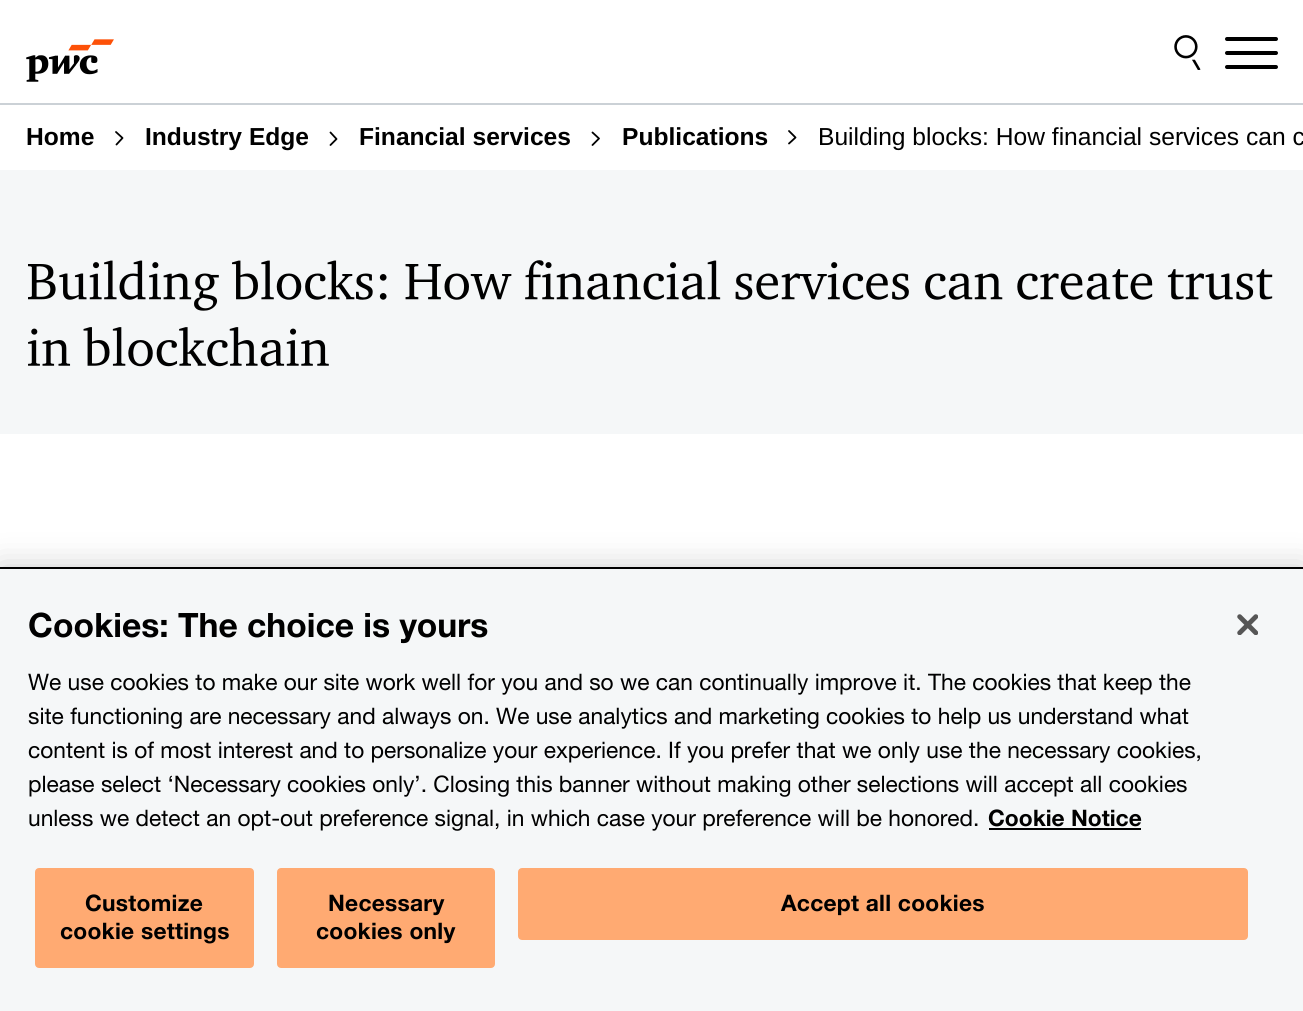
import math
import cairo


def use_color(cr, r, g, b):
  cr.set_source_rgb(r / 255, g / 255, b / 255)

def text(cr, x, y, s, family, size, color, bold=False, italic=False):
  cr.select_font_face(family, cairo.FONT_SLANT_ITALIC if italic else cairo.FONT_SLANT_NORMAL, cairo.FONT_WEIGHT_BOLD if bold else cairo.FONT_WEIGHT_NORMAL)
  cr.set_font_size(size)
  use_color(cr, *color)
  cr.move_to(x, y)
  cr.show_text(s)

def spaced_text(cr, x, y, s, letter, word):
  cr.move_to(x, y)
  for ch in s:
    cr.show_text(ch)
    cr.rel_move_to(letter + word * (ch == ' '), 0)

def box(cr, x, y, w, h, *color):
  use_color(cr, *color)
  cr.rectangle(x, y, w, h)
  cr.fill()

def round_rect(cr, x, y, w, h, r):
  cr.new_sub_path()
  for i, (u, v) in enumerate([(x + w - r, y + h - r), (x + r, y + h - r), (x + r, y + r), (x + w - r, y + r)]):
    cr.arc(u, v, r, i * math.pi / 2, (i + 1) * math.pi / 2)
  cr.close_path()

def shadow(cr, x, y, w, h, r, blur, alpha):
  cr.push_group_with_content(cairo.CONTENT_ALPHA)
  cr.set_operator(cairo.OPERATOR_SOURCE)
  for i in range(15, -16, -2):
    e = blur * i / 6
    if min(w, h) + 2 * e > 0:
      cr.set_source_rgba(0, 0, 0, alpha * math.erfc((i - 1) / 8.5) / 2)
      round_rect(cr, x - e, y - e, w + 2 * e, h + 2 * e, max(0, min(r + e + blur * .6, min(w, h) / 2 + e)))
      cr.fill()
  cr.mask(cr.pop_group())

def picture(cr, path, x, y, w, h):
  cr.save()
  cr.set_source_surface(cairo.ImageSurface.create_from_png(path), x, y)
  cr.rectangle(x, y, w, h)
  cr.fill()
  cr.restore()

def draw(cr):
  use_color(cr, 255, 255, 255)
  cr.paint()
  box(cr, 0, 103, 1303, 2, 203, 209, 214)
  picture(cr, "img_01.png", 26, 39, 88, 43)
  picture(cr, "img_02.png", 1174, 35, 27, 35)
  use_color(cr, 0, 0, 0)
  round_rect(cr, 1225, 37, 53, 4, 2)
  cr.fill()
  round_rect(cr, 1225, 51, 53, 4, 2)
  cr.fill()
  round_rect(cr, 1225, 65, 53, 4, 2)
  cr.fill()
  cr.new_path()
  cr.move_to(116.5, 144.5)
  cr.line_to(122.5, 138)
  cr.line_to(116, 132)
  cr.set_line_width(1.8)
  cr.set_line_cap(cairo.LINE_CAP_ROUND)
  cr.set_line_join(cairo.LINE_JOIN_ROUND)
  cr.stroke()
  cr.new_path()
  cr.move_to(330.5, 145)
  cr.line_to(336.5, 139)
  cr.line_to(330.5, 132.5)
  cr.stroke()
  cr.new_path()
  cr.move_to(592.5, 145)
  cr.line_to(599, 138.5)
  cr.line_to(592.5, 132.5)
  cr.stroke()
  cr.new_path()
  cr.move_to(789, 143.5)
  cr.line_to(795.5, 137.5)
  cr.line_to(789, 131)
  cr.stroke()
  box(cr, 0, 170, 1303, 264, 245, 247, 248)
  picture(cr, "img_03.png", 28, 260, 1245, 51)
  picture(cr, "img_04.png", 28, 327, 301, 40)
  use_color(cr, 0, 0, 0)
  shadow(cr, 0, 567, 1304, 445, 0, 16, 0.2)
  box(cr, 0, 569, 1303, 442, 245, 247, 248)
  box(cr, 0, 567, 1303, 2, 0, 0, 0)
  box(cr, 989, 828, 152, 2, 0, 0, 0)
  use_color(cr, 255, 170, 114)
  round_rect(cr, 36, 869, 217, 98, 3)
  cr.fill_preserve()
  cr.set_line_width(2)
  cr.set_line_cap(cairo.LINE_CAP_BUTT)
  cr.set_line_join(cairo.LINE_JOIN_MITER)
  cr.stroke()
  round_rect(cr, 278, 869, 216, 98, 3)
  cr.fill_preserve()
  cr.stroke()
  round_rect(cr, 519, 869, 728, 70, 3)
  cr.fill_preserve()
  cr.stroke()
  picture(cr, "img_05.png", 1237, 614, 21, 21)
  text(cr, 26, 145, "Home", "Liberation Sans", 24.6, (0, 0, 0), bold=True)
  text(cr, 145, 145, "Industry Edge", "Liberation Sans", 24.6, (0, 0, 0), bold=True)
  text(cr, 359, 145, "Financial services", "Liberation Sans", 24.6, (0, 0, 0), bold=True)
  text(cr, 622, 145, "Publications", "Liberation Sans", 24.6, (0, 0, 0), bold=True)
  text(cr, 818, 145, "Building blocks: How financial services can c", "Liberation Sans", 24.6, (0, 0, 0))
  text(cr, 28, 637, "Cookies: The choice is yours", "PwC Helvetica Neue", 33.6, (0, 0, 0), bold=True)
  text(cr, 28, 690, "We use cookies to make our site work well for you and so we can continually improve it. The cookies that keep the", "PwC Helvetica Neue", 22.75, (0, 0, 0))
  text(cr, 28, 724, "site functioning are necessary and always on. We use analytics and marketing cookies to help us understand what", "PwC Helvetica Neue", 22.75, (0, 0, 0))
  text(cr, 28, 758, "content is of most interest and to personalize your experience. If you prefer that we only use the necessary cookies,", "PwC Helvetica Neue", 22.75, (0, 0, 0))
  text(cr, 28, 792, "please select ‘Necessary cookies only’. Closing this banner without making other selections will accept all cookies", "PwC Helvetica Neue", 22.75, (0, 0, 0))
  text(cr, 28, 826, "unless we detect an opt-out preference signal, in which case your preference will be honored.", "PwC Helvetica Neue", 22.75, (0, 0, 0))
  text(cr, 988, 826, "Cookie Notice", "PwC Helvetica Neue", 22.75, (0, 0, 0), bold=True)
  spaced_text(cr, 85, 911, "Customize", 0.25, 0)
  spaced_text(cr, 60, 939, "cookie settings", 0.25, 0)
  spaced_text(cr, 328, 911, "Necessary", 0.25, 0)
  spaced_text(cr, 316, 939, "cookies only", 0.25, 0)
  spaced_text(cr, 781, 911, "Accept all cookies", 0.25, 0)


surface = cairo.ImageSurface(cairo.FORMAT_RGB24, 1303, 1011)
cr = cairo.Context(surface)
options = cairo.FontOptions()
options.set_hint_metrics(cairo.HINT_METRICS_OFF)
options.set_hint_style(cairo.HINT_STYLE_NONE)
cr.set_font_options(options)
cr.set_miter_limit(4)
draw(cr)
surface.write_to_png("out.png")
